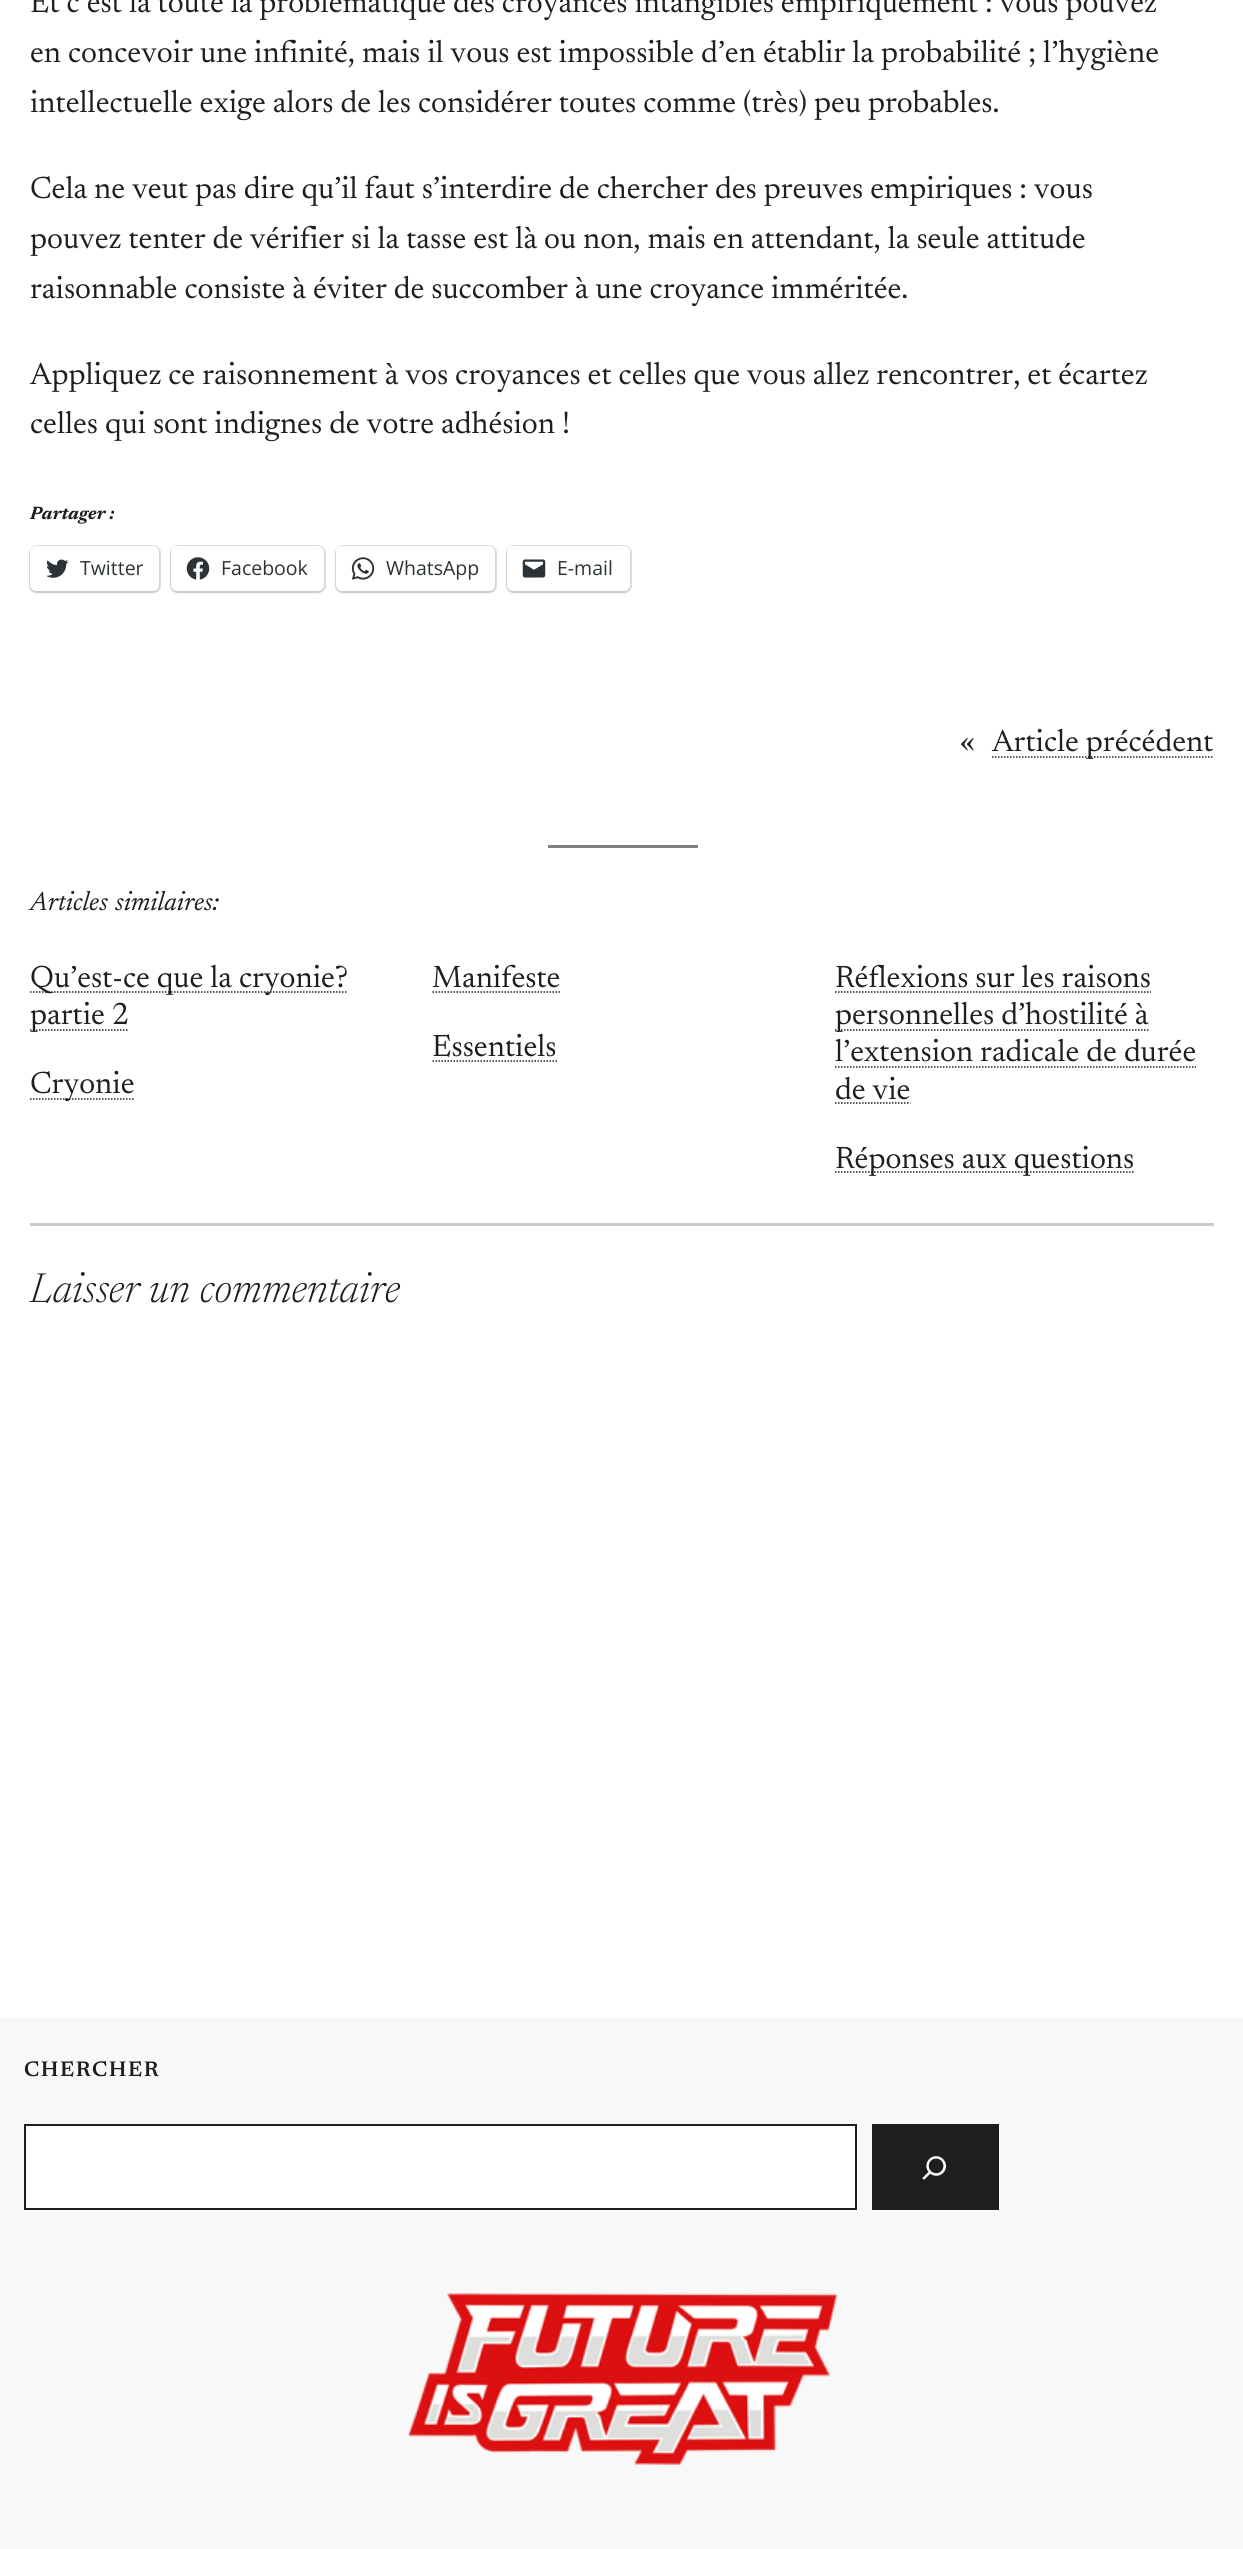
import math
import cairo


def use_color(cr, r, g, b):
  cr.set_source_rgb(r / 255, g / 255, b / 255)

def text(cr, x, y, s, family, size, color, bold=False, italic=False):
  cr.select_font_face(family, cairo.FONT_SLANT_ITALIC if italic else cairo.FONT_SLANT_NORMAL, cairo.FONT_WEIGHT_BOLD if bold else cairo.FONT_WEIGHT_NORMAL)
  cr.set_font_size(size)
  use_color(cr, *color)
  cr.move_to(x, y)
  cr.show_text(s)

def spaced_text(cr, x, y, s, letter, word):
  cr.move_to(x, y)
  for ch in s:
    cr.show_text(ch)
    cr.rel_move_to(letter + word * (ch == ' '), 0)

def box(cr, x, y, w, h, *color):
  use_color(cr, *color)
  cr.rectangle(x, y, w, h)
  cr.fill()

def round_rect(cr, x, y, w, h, r):
  cr.new_sub_path()
  for i, (u, v) in enumerate([(x + w - r, y + h - r), (x + r, y + h - r), (x + r, y + r), (x + w - r, y + r)]):
    cr.arc(u, v, r, i * math.pi / 2, (i + 1) * math.pi / 2)
  cr.close_path()

def shadow(cr, x, y, w, h, r, blur, alpha):
  cr.push_group_with_content(cairo.CONTENT_ALPHA)
  cr.set_operator(cairo.OPERATOR_SOURCE)
  for i in range(15, -16, -2):
    e = blur * i / 6
    if min(w, h) + 2 * e > 0:
      cr.set_source_rgba(0, 0, 0, alpha * math.erfc((i - 1) / 8.5) / 2)
      round_rect(cr, x - e, y - e, w + 2 * e, h + 2 * e, max(0, min(r + e + blur * .6, min(w, h) / 2 + e)))
      cr.fill()
  cr.mask(cr.pop_group())

def picture(cr, path, x, y, w, h):
  cr.save()
  cr.set_source_surface(cairo.ImageSurface.create_from_png(path), x, y)
  cr.rectangle(x, y, w, h)
  cr.fill()
  cr.restore()

def draw(cr):
  use_color(cr, 255, 255, 255)
  cr.paint()
  round_rect(cr, 30, 546, 130, 46, 7)
  use_color(cr, 224, 224, 224)
  cr.stroke()
  use_color(cr, 0, 0, 0)
  shadow(cr, 30, 548, 129, 45, 6, 1.5, 0.12)
  use_color(cr, 255, 255, 255)
  round_rect(cr, 30, 546, 129, 45, 6)
  cr.fill()
  picture(cr, "img_01.png", 46, 559, 23, 19)
  round_rect(cr, 171, 546, 154, 46, 7)
  use_color(cr, 224, 224, 224)
  cr.stroke()
  use_color(cr, 0, 0, 0)
  shadow(cr, 171, 548, 153, 45, 6, 1.5, 0.12)
  use_color(cr, 255, 255, 255)
  round_rect(cr, 171, 546, 153, 45, 6)
  cr.fill()
  picture(cr, "img_02.png", 186, 557, 24, 23)
  round_rect(cr, 336, 546, 160, 46, 7)
  use_color(cr, 224, 224, 224)
  cr.stroke()
  use_color(cr, 0, 0, 0)
  shadow(cr, 336, 548, 159, 45, 6, 1.5, 0.12)
  use_color(cr, 255, 255, 255)
  round_rect(cr, 336, 546, 159, 45, 6)
  cr.fill()
  picture(cr, "img_03.png", 351, 557, 24, 23)
  round_rect(cr, 507, 546, 124, 46, 7)
  use_color(cr, 224, 224, 224)
  cr.stroke()
  use_color(cr, 0, 0, 0)
  shadow(cr, 507, 548, 123, 45, 6, 1.5, 0.12)
  use_color(cr, 255, 255, 255)
  round_rect(cr, 507, 546, 123, 45, 6)
  cr.fill()
  picture(cr, "img_04.png", 522, 559, 24, 19)
  cr.new_path()
  cr.move_to(992, 757)
  cr.line_to(1213.5, 757)
  use_color(cr, 30, 30, 30)
  cr.set_line_width(1.5)
  cr.set_dash([1.5, 1.5])
  cr.stroke()
  box(cr, 548, 845, 150, 3, 128, 128, 128)
  cr.new_path()
  cr.move_to(30, 992)
  cr.line_to(348, 992)
  use_color(cr, 30, 30, 30)
  cr.stroke()
  cr.new_path()
  cr.move_to(30, 1030)
  cr.line_to(129, 1030)
  cr.stroke()
  cr.new_path()
  cr.move_to(30, 1099)
  cr.line_to(134.5, 1099)
  cr.stroke()
  cr.new_path()
  cr.move_to(432.5, 992)
  cr.line_to(561, 992)
  cr.stroke()
  cr.new_path()
  cr.move_to(432.5, 1061)
  cr.line_to(557, 1061)
  cr.stroke()
  cr.new_path()
  cr.move_to(835, 992)
  cr.line_to(1151, 992)
  cr.stroke()
  cr.new_path()
  cr.move_to(835, 1030)
  cr.line_to(1148.5, 1030)
  cr.stroke()
  cr.new_path()
  cr.move_to(835, 1067)
  cr.line_to(1196, 1067)
  cr.stroke()
  cr.new_path()
  cr.move_to(835, 1103)
  cr.line_to(910.5, 1103)
  cr.stroke()
  cr.new_path()
  cr.move_to(835, 1172)
  cr.line_to(1134, 1172)
  cr.stroke()
  box(cr, 30, 1223, 1184, 3, 204, 204, 204)
  box(cr, 0, 2018, 1243, 531, 248, 248, 248)
  use_color(cr, 255, 255, 255)
  cr.rectangle(25, 2125, 831, 84)
  cr.fill_preserve()
  use_color(cr, 30, 30, 30)
  cr.set_line_width(2)
  cr.set_dash([])
  cr.stroke()
  box(cr, 872, 2124, 127, 86, 30, 30, 30)
  picture(cr, "img_05.png", 922, 2156, 24, 24)
  picture(cr, "img_06.png", 407, 2293, 431, 172)
  text(cr, 30, 12, "Et c’est là toute la problématique des croyances intangibles empiriquement : vous pouvez", "Newsreader", 31.2, (30, 30, 30))
  text(cr, 30, 62, "en concevoir une infinité, mais il vous est impossible d’en établir la probabilité ; l’hygiène", "Newsreader", 31.2, (30, 30, 30))
  text(cr, 30, 112, "intellectuelle exige alors de les considérer toutes comme (très) peu probables.", "Newsreader", 31.2, (30, 30, 30))
  text(cr, 30, 198, "Cela ne veut pas dire qu’il faut s’interdire de chercher des preuves empiriques : vous", "Newsreader", 31.2, (30, 30, 30))
  text(cr, 30, 248, "pouvez tenter de vérifier si la tasse est là ou non, mais en attendant, la seule attitude", "Newsreader", 31.2, (30, 30, 30))
  text(cr, 30, 298, "raisonnable consiste à éviter de succomber à une croyance imméritée.", "Newsreader", 31.2, (30, 30, 30))
  text(cr, 30, 384, "Appliquez ce raisonnement à vos croyances et celles que vous allez rencontrer, et écartez", "Newsreader", 31.2, (30, 30, 30))
  text(cr, 30, 433, "celles qui sont indignes de votre adhésion !", "Newsreader", 31.2, (30, 30, 30))
  text(cr, 30, 519, "Partager :", "Newsreader", 18, (30, 30, 30), bold=True, italic=True)
  text(cr, 80, 575, "Twitter", "Open Sans", 19.5, (44, 51, 56))
  text(cr, 221, 575, "Facebook", "Open Sans", 19.5, (44, 51, 56))
  text(cr, 386, 575, "WhatsApp", "Open Sans", 19.5, (44, 51, 56))
  text(cr, 557, 575, "E-mail", "Open Sans", 19.5, (44, 51, 56))
  text(cr, 960, 751, "«", "Newsreader", 31.2, (30, 30, 30))
  text(cr, 992, 751, "Article précédent", "Newsreader", 31.2, (30, 30, 30))
  cr.select_font_face("Newsreader", cairo.FONT_SLANT_ITALIC)
  cr.set_font_size(27)
  spaced_text(cr, 30, 910, "Articles similaires:", 0, 1)
  text(cr, 30, 987, "Qu’est-ce que la cryonie?", "Newsreader", 31.2, (30, 30, 30))
  text(cr, 30, 1024, "partie 2", "Newsreader", 31.2, (30, 30, 30))
  text(cr, 30, 1093, "Cryonie", "Newsreader", 31.2, (30, 30, 30))
  text(cr, 432, 987, "Manifeste", "Newsreader", 31.2, (30, 30, 30))
  text(cr, 432, 1056, "Essentiels", "Newsreader", 31.2, (30, 30, 30))
  text(cr, 835, 987, "Réflexions sur les raisons", "Newsreader", 31.2, (30, 30, 30))
  text(cr, 835, 1024, "personnelles d’hostilité à", "Newsreader", 31.2, (30, 30, 30))
  text(cr, 835, 1061, "l’extension radicale de durée", "Newsreader", 31.2, (30, 30, 30))
  text(cr, 835, 1099, "de vie", "Newsreader", 31.2, (30, 30, 30))
  text(cr, 835, 1168, "Réponses aux questions", "Newsreader", 31.2, (30, 30, 30))
  text(cr, 30, 1302, "Laisser un commentaire", "Newsreader Light", 42, (30, 30, 30), italic=True)
  cr.select_font_face("Newsreader SemiBold")
  cr.set_font_size(21.5)
  spaced_text(cr, 24, 2076, "CHERCHER", 1.5, 0)


surface = cairo.ImageSurface(cairo.FORMAT_RGB24, 1243, 2549)
cr = cairo.Context(surface)
options = cairo.FontOptions()
options.set_hint_metrics(cairo.HINT_METRICS_OFF)
options.set_hint_style(cairo.HINT_STYLE_NONE)
cr.set_font_options(options)
cr.set_miter_limit(4)
draw(cr)
surface.write_to_png("out.png")
